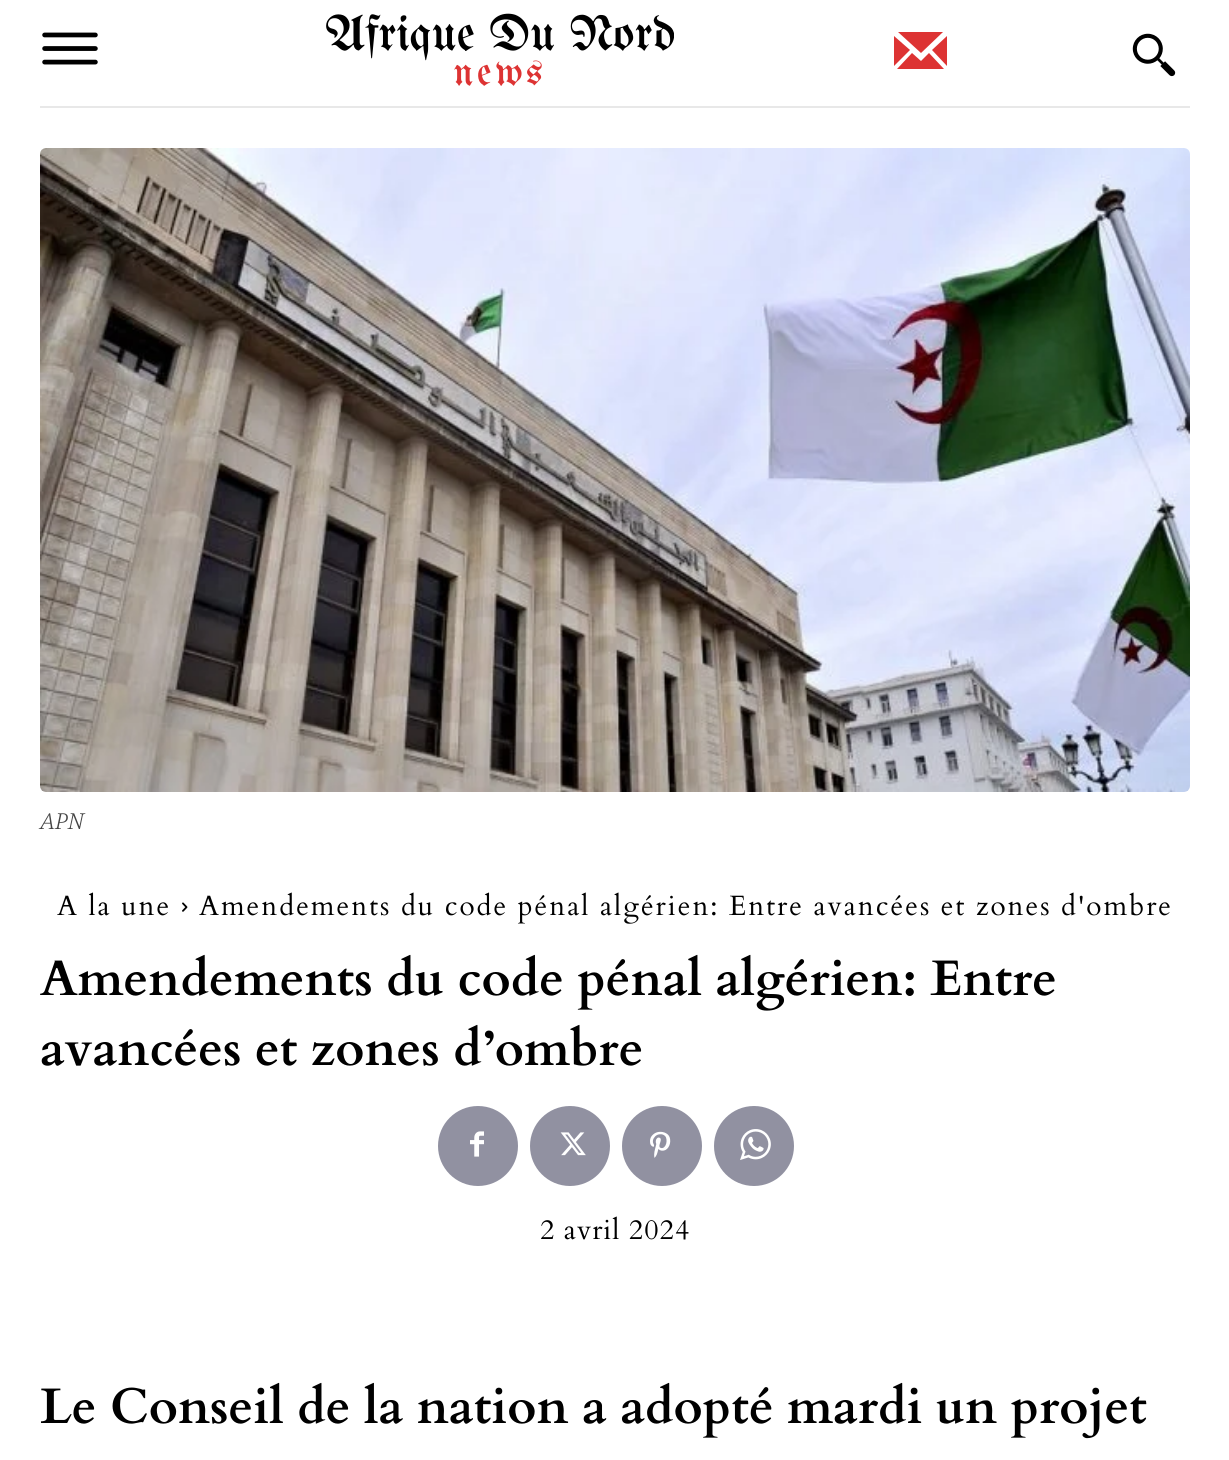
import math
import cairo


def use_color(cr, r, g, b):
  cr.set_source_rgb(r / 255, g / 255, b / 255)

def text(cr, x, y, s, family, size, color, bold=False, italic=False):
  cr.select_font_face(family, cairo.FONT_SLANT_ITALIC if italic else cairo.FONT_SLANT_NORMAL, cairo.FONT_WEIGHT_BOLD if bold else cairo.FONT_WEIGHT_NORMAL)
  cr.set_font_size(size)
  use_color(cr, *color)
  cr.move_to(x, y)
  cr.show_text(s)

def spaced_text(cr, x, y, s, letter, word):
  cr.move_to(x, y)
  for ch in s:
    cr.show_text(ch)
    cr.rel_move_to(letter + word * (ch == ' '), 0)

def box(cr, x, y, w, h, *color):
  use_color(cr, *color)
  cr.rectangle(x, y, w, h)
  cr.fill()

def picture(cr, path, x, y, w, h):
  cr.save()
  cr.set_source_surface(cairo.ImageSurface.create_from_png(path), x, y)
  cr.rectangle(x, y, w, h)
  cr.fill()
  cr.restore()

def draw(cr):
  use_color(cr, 255, 255, 255)
  cr.paint()
  box(cr, 40, 106, 1150, 2, 232, 232, 232)
  picture(cr, "img_01.png", 42, 32, 56, 33)
  use_color(cr, 221, 51, 51)
  cr.new_path()
  cr.move_to(929, 53)
  cr.line_to(944, 69)
  cr.line_to(897, 69)
  cr.line_to(912, 53)
  cr.line_to(921, 61)
  cr.close_path()
  cr.move_to(898, 32)
  cr.line_to(943, 32)
  cr.line_to(921, 53)
  cr.close_path()
  cr.move_to(932, 50)
  cr.line_to(947, 36)
  cr.line_to(947, 66)
  cr.close_path()
  cr.move_to(894, 66)
  cr.line_to(894, 36)
  cr.line_to(910, 50)
  cr.close_path()
  cr.fill()
  picture(cr, "img_02.png", 1132, 33, 44, 44)
  picture(cr, "img_03.png", 40, 148, 1150, 644)
  picture(cr, "img_04.png", 182, 902, 6, 10)
  use_color(cr, 145, 145, 161)
  cr.arc(478, 1146, 40, 0, 2 * math.pi)
  cr.fill()
  picture(cr, "img_05.png", 470, 1131, 14, 26)
  cr.arc(570, 1146, 40, 0, 2 * math.pi)
  cr.fill()
  picture(cr, "img_06.png", 560, 1132, 26, 24)
  cr.arc(662, 1146, 40, 0, 2 * math.pi)
  cr.fill()
  picture(cr, "img_07.png", 650, 1131, 21, 27)
  cr.arc(754, 1146, 40, 0, 2 * math.pi)
  cr.fill()
  picture(cr, "img_08.png", 740, 1129, 31, 31)
  text(cr, 325, 50, "Afrique Du Nord", "UnifrakturMaguntia", 50, (0, 0, 0))
  cr.set_font_size(40)
  use_color(cr, 221, 51, 51)
  spaced_text(cr, 453, 85, "news", 3.5, 0)
  text(cr, 40, 829, "APN", "Noto Serif Light", 22, (68, 68, 68), italic=True)
  cr.select_font_face("Cardo")
  cr.set_font_size(28)
  use_color(cr, 0, 0, 0)
  spaced_text(cr, 57, 915, "A la une", 2, 0)
  spaced_text(cr, 199, 915, "Amendements du code pénal algérien: Entre avancées et zones d'ombre", 2, 0)
  text(cr, 40, 995, "Amendements du code pénal algérien: Entre", "Cardo", 50, (0, 0, 0), bold=True)
  text(cr, 40, 1065, "avancées et zones d’ombre", "Cardo", 50, (0, 0, 0), bold=True)
  cr.select_font_face("Cardo")
  cr.set_font_size(28)
  spaced_text(cr, 540, 1239, "2 avril 2024", 1, 0)
  text(cr, 40, 1423, "Le Conseil de la nation a adopté mardi un projet", "Cardo", 50, (0, 0, 0), bold=True)


surface = cairo.ImageSurface(cairo.FORMAT_RGB24, 1229, 1460)
cr = cairo.Context(surface)
options = cairo.FontOptions()
options.set_hint_metrics(cairo.HINT_METRICS_OFF)
options.set_hint_style(cairo.HINT_STYLE_NONE)
cr.set_font_options(options)
cr.set_miter_limit(4)
draw(cr)
surface.write_to_png("out.png")
